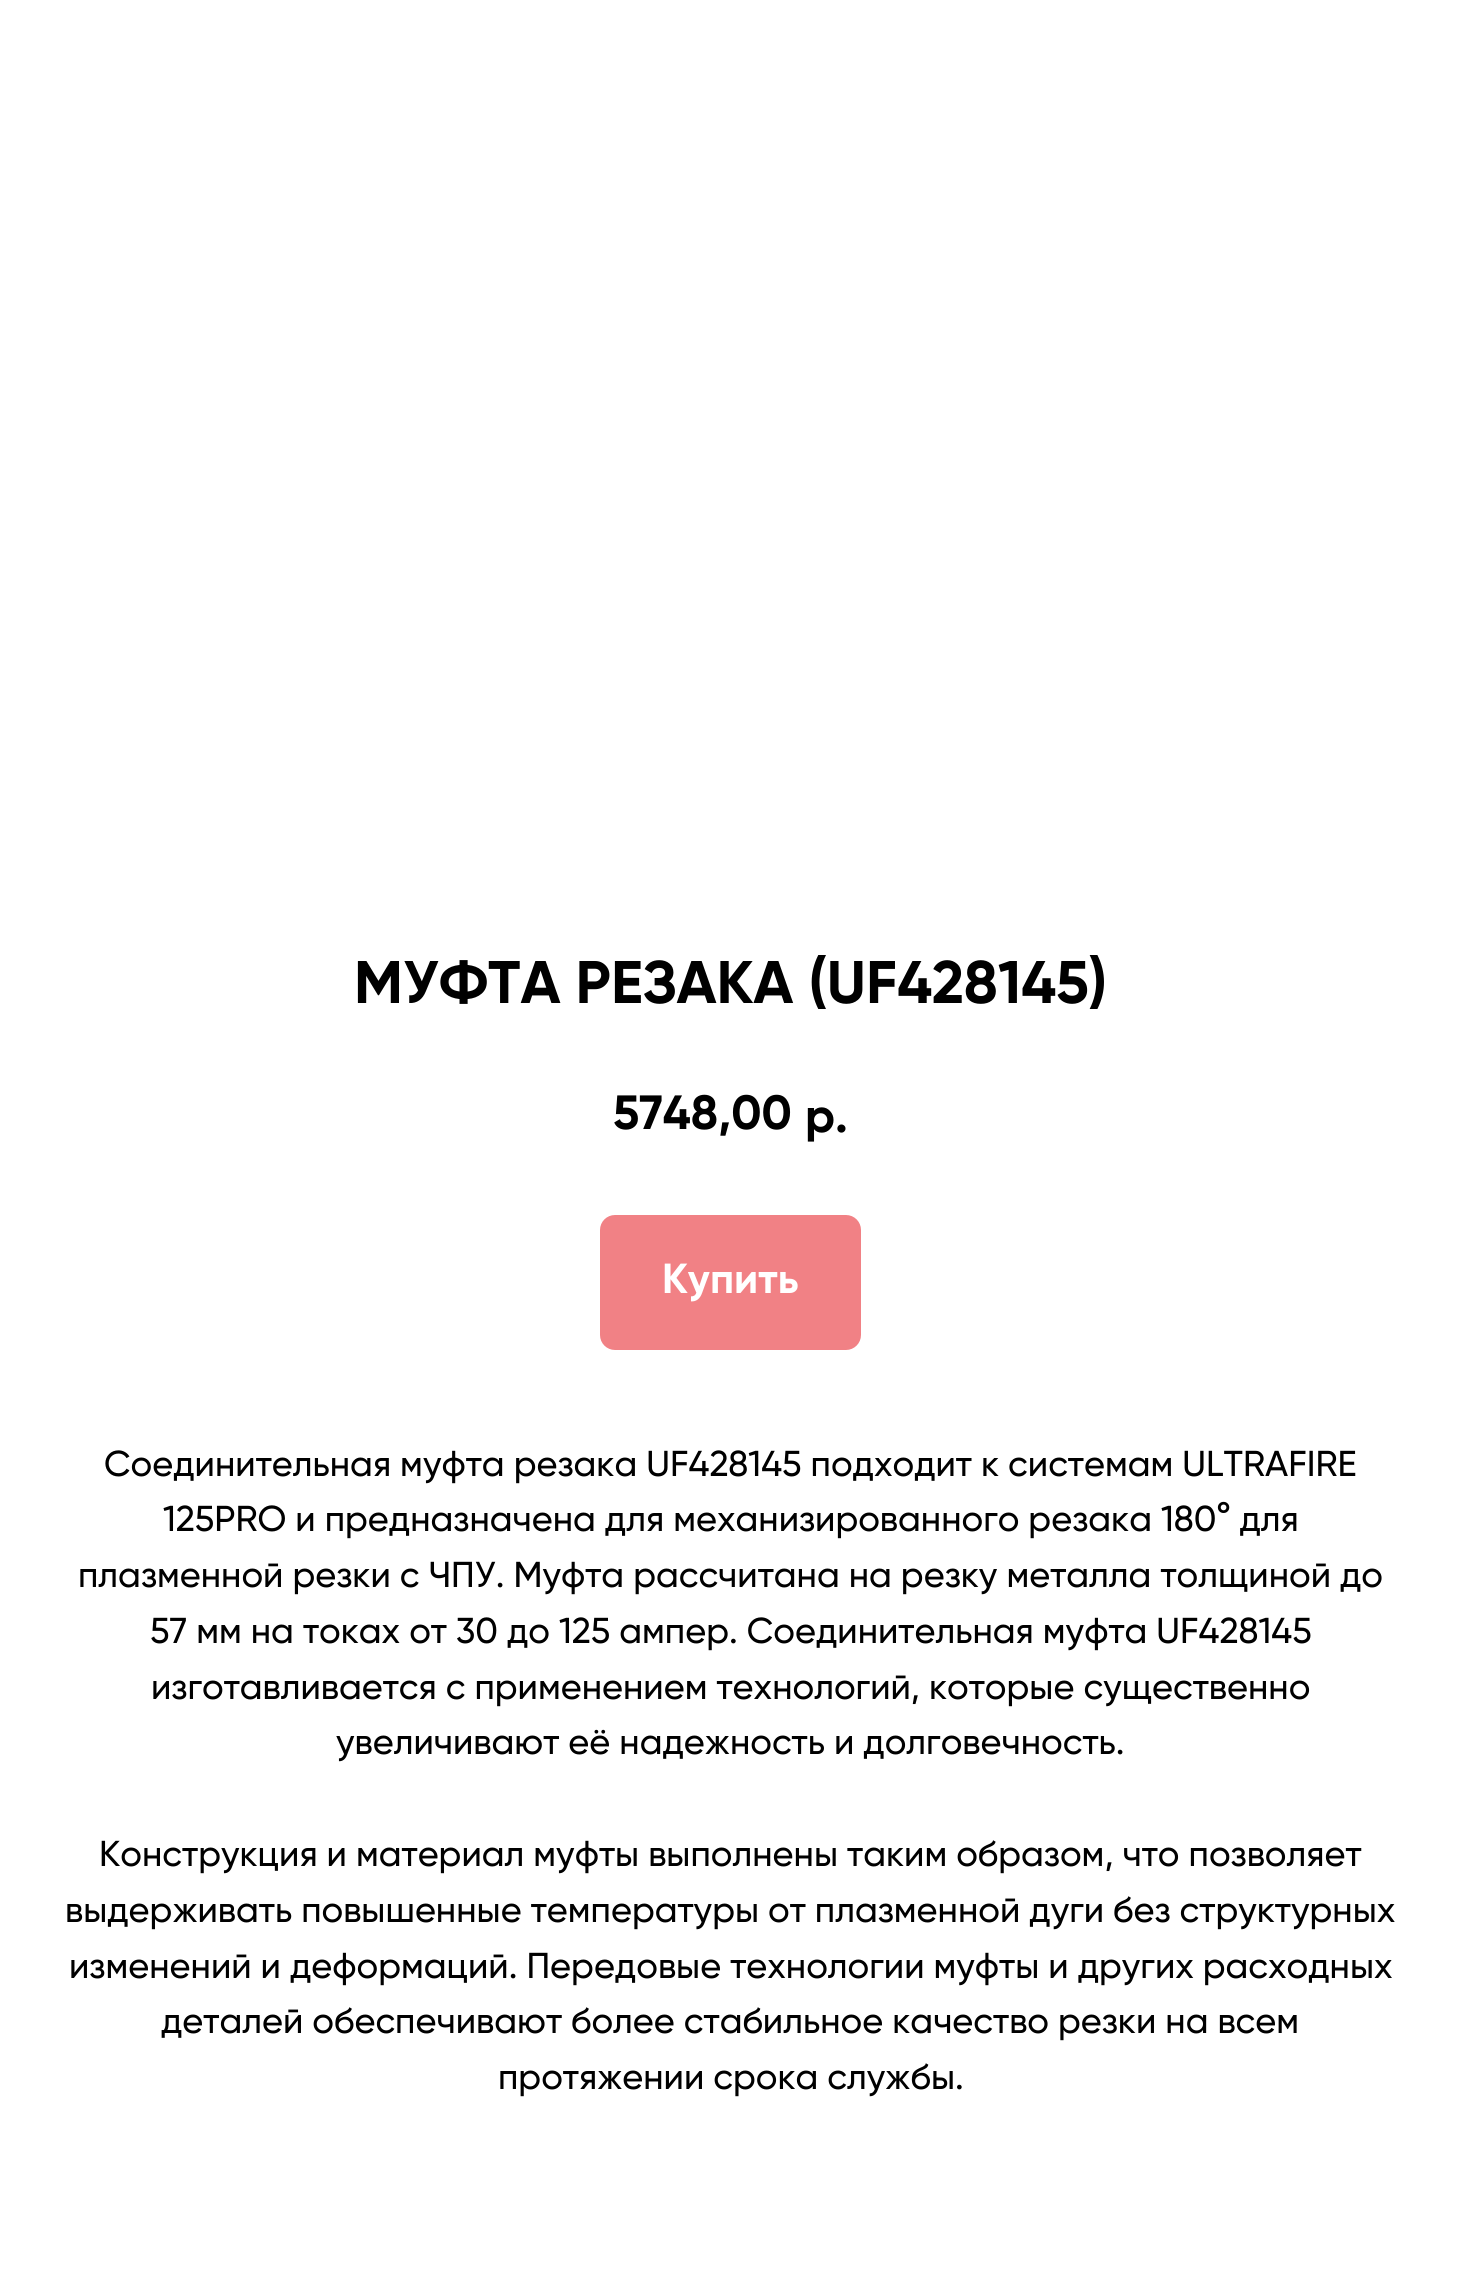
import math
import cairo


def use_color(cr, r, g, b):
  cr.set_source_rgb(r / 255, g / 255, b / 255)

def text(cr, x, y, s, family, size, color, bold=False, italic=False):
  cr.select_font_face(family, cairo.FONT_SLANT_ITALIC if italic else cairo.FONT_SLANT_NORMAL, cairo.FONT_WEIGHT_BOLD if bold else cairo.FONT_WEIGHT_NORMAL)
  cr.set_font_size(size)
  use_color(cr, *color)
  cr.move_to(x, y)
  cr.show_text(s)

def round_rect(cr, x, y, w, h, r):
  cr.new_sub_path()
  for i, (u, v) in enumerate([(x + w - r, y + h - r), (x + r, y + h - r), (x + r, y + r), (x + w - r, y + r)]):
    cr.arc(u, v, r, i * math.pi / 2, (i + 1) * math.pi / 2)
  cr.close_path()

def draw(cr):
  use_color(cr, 255, 255, 255)
  cr.paint()
  use_color(cr, 241, 129, 133)
  round_rect(cr, 601.5, 1216.5, 258, 132, 13.5)
  cr.fill_preserve()
  cr.set_line_width(3)
  cr.stroke()
  text(cr, 354, 1003, "МУФТА РЕЗАКА (UF428145)", "Gilroy", 60, (0, 0, 0), bold=True)
  text(cr, 613, 1129, "5748,00", "Gilroy", 48, (0, 0, 0), bold=True)
  text(cr, 805, 1132, "р.", "Gilroy", 48, (0, 0, 0), bold=True)
  text(cr, 662, 1293, "Купить", "Gilroy", 42, (255, 255, 255), bold=True)
  text(cr, 104, 1476, "Соединительная муфта резака UF428145 подходит к системам ULTRAFIRE", "Gilroy Medium", 36, (0, 0, 0))
  text(cr, 163, 1531, "125PRO и предназначена для механизированного резака 180° для", "Gilroy Medium", 36, (0, 0, 0))
  text(cr, 78, 1587, "плазменной резки с ЧПУ. Муфта рассчитана на резку металла толщиной до", "Gilroy Medium", 36, (0, 0, 0))
  text(cr, 150, 1643, "57 мм на токах от 30 до 125 ампер. Соединительная муфта UF428145", "Gilroy Medium", 36, (0, 0, 0))
  text(cr, 151, 1699, "изготавливается с применением технологий, которые существенно", "Gilroy Medium", 36, (0, 0, 0))
  text(cr, 336, 1754, "увеличивают её надежность и долговечность.", "Gilroy Medium", 36, (0, 0, 0))
  text(cr, 99, 1866, "Конструкция и материал муфты выполнены таким образом, что позволяет", "Gilroy Medium", 36, (0, 0, 0))
  text(cr, 65, 1922, "выдерживать повышенные температуры от плазменной дуги без структурных", "Gilroy Medium", 36, (0, 0, 0))
  text(cr, 69, 1978, "изменений и деформаций. Передовые технологии муфты и других расходных", "Gilroy Medium", 36, (0, 0, 0))
  text(cr, 161, 2033, "деталей обеспечивают более стабильное качество резки на всем", "Gilroy Medium", 36, (0, 0, 0))
  text(cr, 498, 2089, "протяжении срока службы.", "Gilroy Medium", 36, (0, 0, 0))


surface = cairo.ImageSurface(cairo.FORMAT_RGB24, 1459, 2287)
cr = cairo.Context(surface)
options = cairo.FontOptions()
options.set_hint_metrics(cairo.HINT_METRICS_OFF)
options.set_hint_style(cairo.HINT_STYLE_NONE)
cr.set_font_options(options)
cr.set_miter_limit(4)
draw(cr)
surface.write_to_png("out.png")
